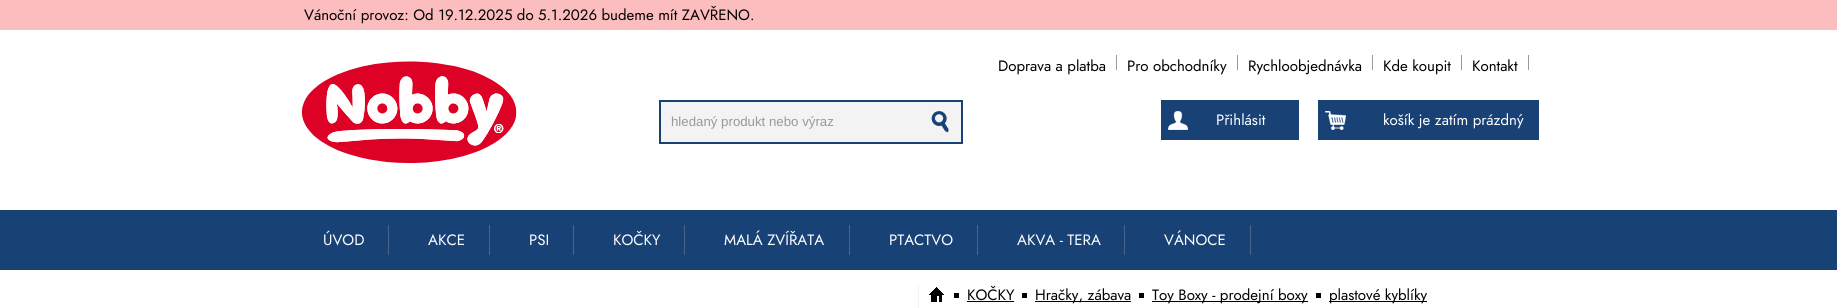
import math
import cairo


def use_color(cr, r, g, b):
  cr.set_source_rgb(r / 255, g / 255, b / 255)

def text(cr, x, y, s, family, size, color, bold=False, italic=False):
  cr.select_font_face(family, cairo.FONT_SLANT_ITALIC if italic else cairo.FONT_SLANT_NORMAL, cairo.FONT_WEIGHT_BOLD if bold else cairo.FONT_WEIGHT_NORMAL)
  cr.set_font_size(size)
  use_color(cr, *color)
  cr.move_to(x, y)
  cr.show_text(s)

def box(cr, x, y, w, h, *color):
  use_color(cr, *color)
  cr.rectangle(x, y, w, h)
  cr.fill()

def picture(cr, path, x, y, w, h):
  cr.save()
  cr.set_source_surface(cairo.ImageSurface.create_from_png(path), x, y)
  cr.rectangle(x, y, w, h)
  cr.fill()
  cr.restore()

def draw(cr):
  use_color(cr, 255, 255, 255)
  cr.paint()
  box(cr, 0, 0, 1837, 30, 251, 189, 189)
  picture(cr, "img_01.png", 301, 61, 216, 102)
  box(cr, 1116, 55, 1, 15, 153, 153, 153)
  box(cr, 1237, 55, 1, 15, 153, 153, 153)
  box(cr, 1372, 55, 1, 15, 153, 153, 153)
  box(cr, 1461, 55, 1, 15, 153, 153, 153)
  box(cr, 1528, 55, 1, 15, 153, 153, 153)
  use_color(cr, 243, 243, 243)
  cr.rectangle(660, 101, 302, 42)
  cr.fill_preserve()
  use_color(cr, 24, 66, 118)
  cr.stroke()
  picture(cr, "img_02.png", 931, 111, 18, 22)
  box(cr, 1161, 100, 138, 40, 24, 66, 118)
  picture(cr, "img_03.png", 1168, 111, 20, 19)
  box(cr, 1318, 100, 221, 40, 24, 66, 118)
  picture(cr, "img_04.png", 1325, 111, 21, 19)
  box(cr, 0, 210, 1837, 60, 24, 66, 118)
  box(cr, 388, 225, 1, 30, 73, 101, 141)
  box(cr, 489, 225, 1, 30, 73, 101, 141)
  box(cr, 573, 225, 1, 30, 73, 101, 141)
  box(cr, 684, 225, 1, 30, 73, 101, 141)
  box(cr, 849, 225, 1, 30, 73, 101, 141)
  box(cr, 977, 225, 1, 30, 73, 101, 141)
  box(cr, 1124, 225, 1, 30, 73, 101, 141)
  box(cr, 1250, 225, 1, 30, 73, 101, 141)
  box(cr, 918, 285, 1, 23, 243, 243, 243)
  picture(cr, "img_05.png", 929, 287, 15, 15)
  box(cr, 954, 293, 5, 5, 0, 0, 0)
  box(cr, 967, 301, 47, 1, 0, 0, 0)
  box(cr, 1022, 293, 5, 5, 0, 0, 0)
  box(cr, 1035, 301, 96, 1, 0, 0, 0)
  box(cr, 1139, 293, 5, 5, 0, 0, 0)
  box(cr, 1152, 301, 156, 1, 0, 0, 0)
  box(cr, 1316, 293, 5, 5, 0, 0, 0)
  box(cr, 1329, 301, 98, 1, 0, 0, 0)
  text(cr, 304, 20, "Vánoční provoz: Od 19.12.2025 do 5.1.2026 budeme mít ZAVŘENO.", "Jost", 15, (0, 0, 0))
  text(cr, 998, 71, "Doprava a platba", "Jost", 15, (0, 0, 0))
  text(cr, 1127, 71, "Pro obchodníky", "Jost", 15, (0, 0, 0))
  text(cr, 1248, 71, "Rychloobjednávka", "Jost", 15, (0, 0, 0))
  text(cr, 1383, 71, "Kde koupit", "Jost", 15, (0, 0, 0))
  text(cr, 1472, 71, "Kontakt", "Jost", 15, (0, 0, 0))
  text(cr, 671, 126, "hledaný produkt nebo výraz", "Liberation Sans", 13.25, (153, 153, 153))
  text(cr, 1216, 125, "Přihlásit", "Jost", 15, (255, 255, 255))
  text(cr, 1383, 125, "košík je zatím prázdný", "Jost", 15, (255, 255, 255))
  text(cr, 323, 245, "ÚVOD", "Jost", 15, (255, 255, 255))
  text(cr, 428, 245, "AKCE", "Jost", 15, (255, 255, 255))
  text(cr, 529, 245, "PSI", "Jost", 15, (255, 255, 255))
  text(cr, 613, 245, "KOČKY", "Jost", 15, (255, 255, 255))
  text(cr, 724, 245, "MALÁ ZVÍŘATA", "Jost", 15, (255, 255, 255))
  text(cr, 889, 245, "PTACTVO", "Jost", 15, (255, 255, 255))
  text(cr, 1017, 245, "AKVA - TERA", "Jost", 15, (255, 255, 255))
  text(cr, 1164, 245, "VÁNOCE", "Jost", 15, (255, 255, 255))
  text(cr, 967, 300, "KOČKY", "Jost", 15, (0, 0, 0))
  text(cr, 1035, 300, "Hračky, zábava", "Jost", 15, (0, 0, 0))
  text(cr, 1152, 300, "Toy Boxy - prodejní boxy", "Jost", 15, (0, 0, 0))
  text(cr, 1329, 300, "plastové kyblíky", "Jost", 15, (0, 0, 0))


surface = cairo.ImageSurface(cairo.FORMAT_RGB24, 1837, 308)
cr = cairo.Context(surface)
options = cairo.FontOptions()
options.set_hint_metrics(cairo.HINT_METRICS_OFF)
options.set_hint_style(cairo.HINT_STYLE_NONE)
cr.set_font_options(options)
cr.set_miter_limit(4)
draw(cr)
surface.write_to_png("out.png")
